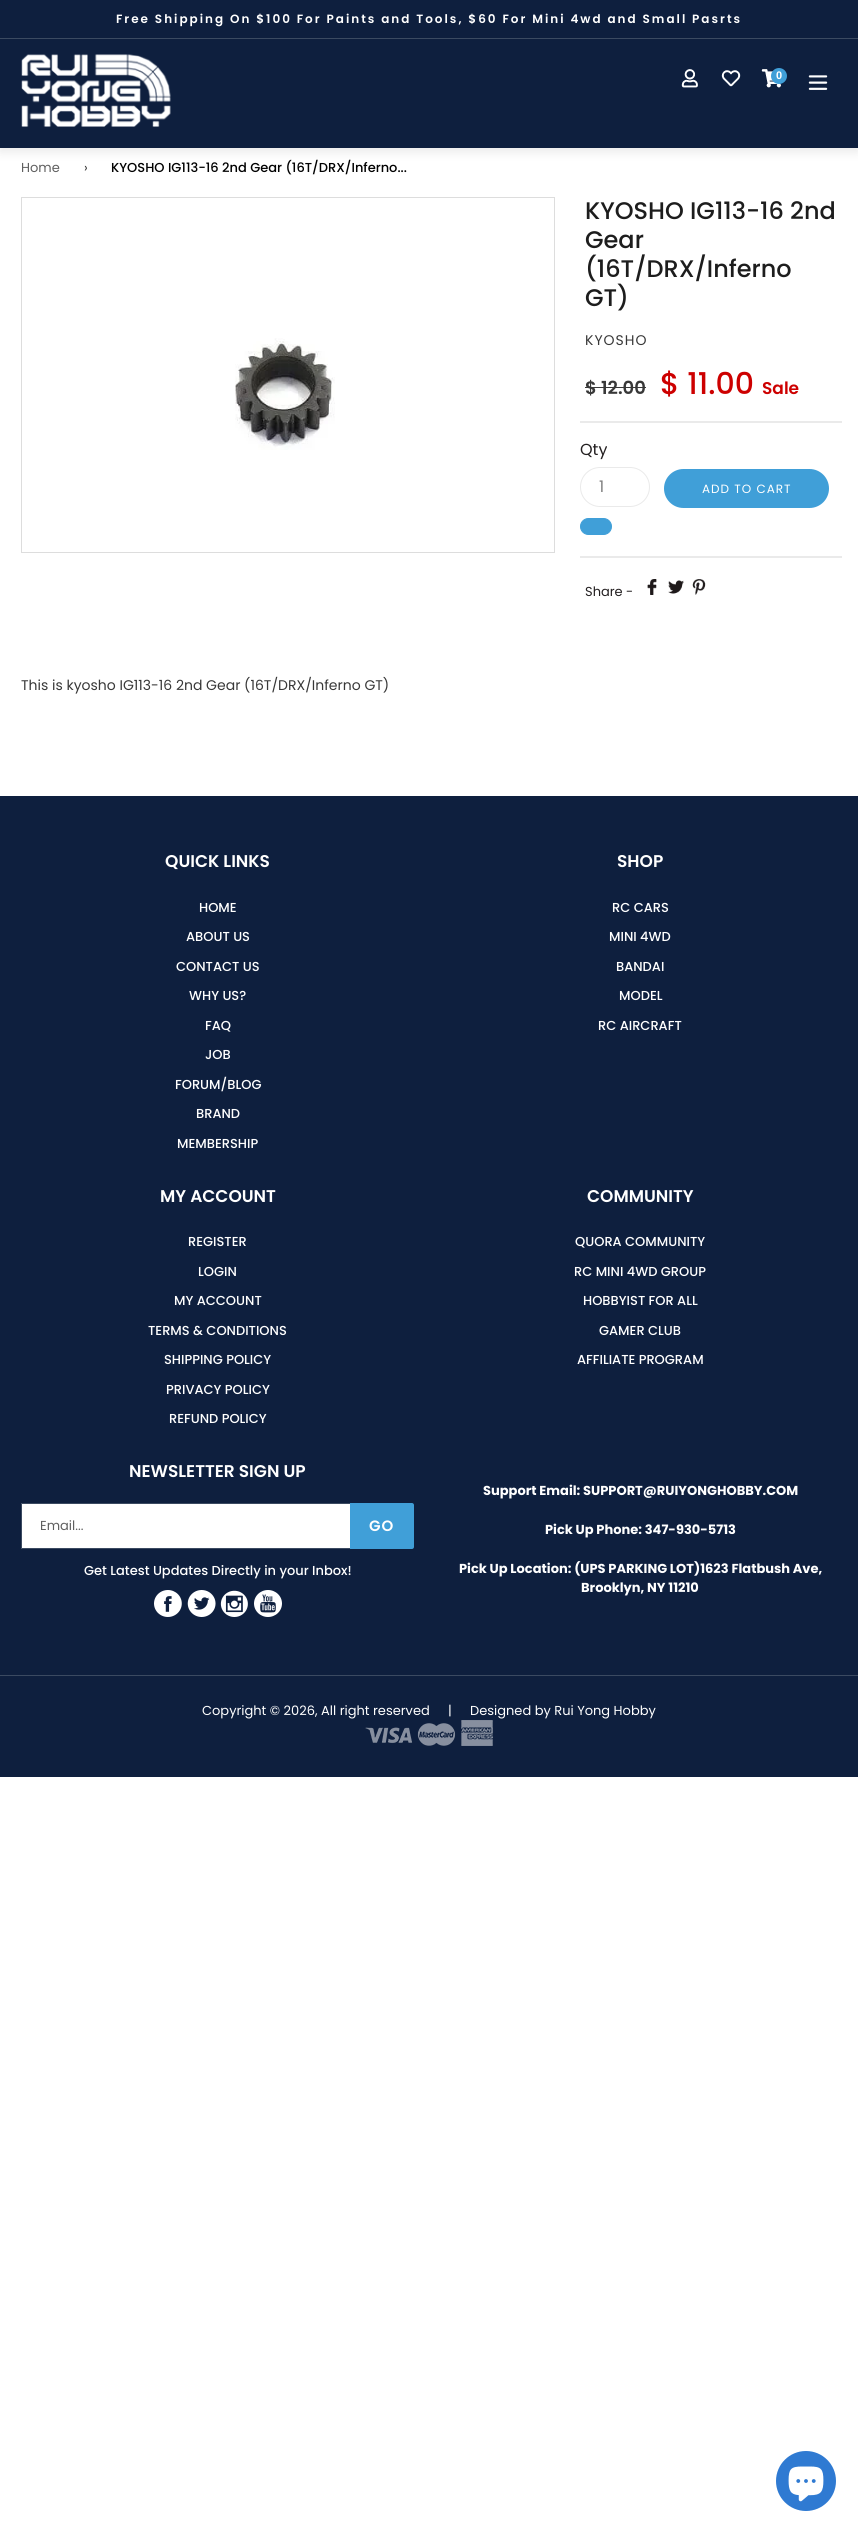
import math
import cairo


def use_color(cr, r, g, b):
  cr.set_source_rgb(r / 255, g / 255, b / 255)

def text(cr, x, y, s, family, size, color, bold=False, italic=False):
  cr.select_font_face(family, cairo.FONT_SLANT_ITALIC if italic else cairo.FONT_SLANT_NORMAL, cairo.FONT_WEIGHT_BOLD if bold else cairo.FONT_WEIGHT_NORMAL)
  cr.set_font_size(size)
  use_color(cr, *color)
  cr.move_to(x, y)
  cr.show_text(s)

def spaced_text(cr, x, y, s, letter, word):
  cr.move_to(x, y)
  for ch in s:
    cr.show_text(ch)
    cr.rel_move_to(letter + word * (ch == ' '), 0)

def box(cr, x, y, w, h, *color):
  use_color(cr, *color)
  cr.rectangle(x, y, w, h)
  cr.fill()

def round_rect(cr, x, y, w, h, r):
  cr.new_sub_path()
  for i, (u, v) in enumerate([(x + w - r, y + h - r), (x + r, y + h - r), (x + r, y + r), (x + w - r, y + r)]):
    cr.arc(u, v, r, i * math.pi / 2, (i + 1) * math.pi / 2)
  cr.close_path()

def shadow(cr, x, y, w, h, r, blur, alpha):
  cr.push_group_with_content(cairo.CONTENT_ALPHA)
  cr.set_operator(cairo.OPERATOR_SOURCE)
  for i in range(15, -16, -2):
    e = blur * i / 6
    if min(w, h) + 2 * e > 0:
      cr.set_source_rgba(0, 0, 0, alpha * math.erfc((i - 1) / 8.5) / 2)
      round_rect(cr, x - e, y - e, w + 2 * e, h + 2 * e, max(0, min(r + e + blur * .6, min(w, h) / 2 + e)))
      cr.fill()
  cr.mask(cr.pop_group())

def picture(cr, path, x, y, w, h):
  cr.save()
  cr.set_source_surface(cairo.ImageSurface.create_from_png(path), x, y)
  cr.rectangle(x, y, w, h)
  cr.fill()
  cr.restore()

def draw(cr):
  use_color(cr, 255, 255, 255)
  cr.paint()
  use_color(cr, 234, 234, 234)
  shadow(cr, 0, 42, 858, 110, 0, 5, 1)
  box(cr, 0, 0, 858, 38, 14, 31, 62)
  box(cr, 0, 39, 858, 109, 14, 31, 62)
  box(cr, 0, 38, 858, 1, 59, 74, 97)
  picture(cr, "img_01.png", 21, 54, 150, 73)
  picture(cr, "img_02.png", 681, 69, 17, 19)
  picture(cr, "img_03.png", 721, 70, 20, 17)
  picture(cr, "img_04.png", 761, 69, 20, 19)
  use_color(cr, 64, 159, 216)
  cr.arc(779, 76, 8, 0, 2 * math.pi)
  cr.fill()
  picture(cr, "img_05.png", 808, 75, 20, 15)
  cr.rectangle(21.5, 197.5, 533, 355)
  use_color(cr, 221, 221, 221)
  cr.set_line_width(1)
  cr.stroke()
  picture(cr, "img_06.png", 235, 338, 100, 112)
  box(cr, 585, 387, 61, 1, 56, 56, 56)
  box(cr, 580, 421, 262, 2, 234, 234, 234)
  box(cr, 580, 556, 262, 2, 234, 234, 234)
  round_rect(cr, 580.5, 467.5, 69, 39, 19.5)
  cr.stroke()
  use_color(cr, 64, 159, 216)
  round_rect(cr, 664, 469, 165, 39, 19.5)
  cr.fill()
  round_rect(cr, 580.5, 518.5, 31, 16, 8)
  cr.fill_preserve()
  cr.stroke()
  picture(cr, "img_07.png", 647, 579, 10, 16)
  picture(cr, "img_08.png", 668, 580, 16, 14)
  picture(cr, "img_09.png", 692, 579, 14, 16)
  box(cr, 0, 796, 858, 879, 14, 31, 62)
  use_color(cr, 255, 255, 255)
  cr.new_path()
  cr.move_to(23, 1503)
  cr.line_to(350, 1503)
  cr.line_to(350, 1549)
  cr.line_to(23, 1549)
  cr.curve_to(22, 1549, 21, 1548, 21, 1547)
  cr.line_to(21, 1505)
  cr.curve_to(21, 1504, 22, 1503, 23, 1503)
  cr.close_path()
  cr.fill()
  box(cr, 22, 1503, 328, 1, 59, 74, 97)
  box(cr, 22, 1548, 328, 1, 59, 74, 97)
  box(cr, 21, 1504, 1, 44, 59, 74, 97)
  use_color(cr, 64, 159, 216)
  cr.new_path()
  cr.move_to(350, 1503)
  cr.line_to(412, 1503)
  cr.curve_to(413, 1503, 414, 1504, 414, 1505)
  cr.line_to(414, 1547)
  cr.curve_to(414, 1548, 413, 1549, 412, 1549)
  cr.line_to(350, 1549)
  cr.close_path()
  cr.fill()
  picture(cr, "img_10.png", 154, 1590, 28, 27)
  picture(cr, "img_11.png", 187, 1590, 29, 27)
  picture(cr, "img_12.png", 220, 1590, 28, 27)
  picture(cr, "img_13.png", 254, 1590, 28, 27)
  box(cr, 0, 1676, 858, 101, 14, 31, 62)
  box(cr, 0, 1675, 858, 1, 59, 74, 97)
  picture(cr, "img_14.png", 365, 1720, 128, 26)
  use_color(cr, 47, 122, 210)
  cr.arc(806, 2481, 30, 0, 2 * math.pi)
  cr.fill()
  picture(cr, "img_15.png", 788, 2466, 36, 36)
  cr.select_font_face("Poppins SemiBold")
  cr.set_font_size(12)
  use_color(cr, 255, 255, 255)
  spaced_text(cr, 116, 23, "Free Shipping On $100 For Paints and Tools, $60 For Mini 4wd and Small Pasrts", 2, 0)
  text(cr, 776, 79, "0", "Liberation Sans", 11, (255, 255, 255), bold=True)
  text(cr, 21, 172, "Home", "Poppins", 13, (95, 95, 95))
  text(cr, 84, 172, "›", "Poppins", 13, (56, 56, 56))
  text(cr, 111, 172, "KYOSHO IG113-16 2nd Gear (16T/DRX/Inferno...", "Poppins Medium", 13, (1, 1, 1))
  text(cr, 585, 219, "KYOSHO IG113-16 2nd", "Poppins Medium", 24, (29, 29, 29))
  text(cr, 585, 248, "Gear", "Poppins Medium", 24, (29, 29, 29))
  text(cr, 585, 277, "(16T/DRX/Inferno", "Poppins Medium", 24, (29, 29, 29))
  text(cr, 585, 306, "GT)", "Poppins Medium", 24, (29, 29, 29))
  cr.select_font_face("Poppins")
  cr.set_font_size(14)
  use_color(cr, 56, 56, 56)
  spaced_text(cr, 585, 345, "KYOSHO", 1, 0)
  text(cr, 585, 394, "$ 12.00", "Poppins SemiBold", 18, (56, 56, 56))
  text(cr, 660, 394, "$ 11.00", "Poppins Medium", 30, (205, 0, 0))
  text(cr, 762, 394, "Sale", "Poppins SemiBold", 17, (205, 0, 0))
  text(cr, 580, 455, "Qty", "Poppins", 16, (35, 31, 32))
  text(cr, 599, 492, "1", "Poppins", 16, (128, 128, 128))
  cr.set_font_size(12)
  use_color(cr, 255, 255, 255)
  spaced_text(cr, 702, 493, "ADD TO CART", 1, 0)
  text(cr, 585, 596, "Share -", "Poppins", 13, (35, 31, 32))
  text(cr, 21, 690, "This is kyosho IG113-16 2nd Gear (16T/DRX/Inferno GT)", "Poppins", 14, (56, 56, 56))
  text(cr, 165, 867, "QUICK LINKS", "Poppins SemiBold", 17, (255, 255, 255))
  text(cr, 199, 912, "HOME", "Poppins Medium", 13, (255, 255, 255))
  text(cr, 186, 941, "ABOUT US", "Poppins Medium", 13, (255, 255, 255))
  text(cr, 176, 971, "CONTACT US", "Poppins Medium", 13, (255, 255, 255))
  text(cr, 189, 1000, "WHY US?", "Poppins Medium", 13, (255, 255, 255))
  text(cr, 205, 1030, "FAQ", "Poppins Medium", 13, (255, 255, 255))
  text(cr, 205, 1059, "JOB", "Poppins Medium", 13, (255, 255, 255))
  text(cr, 175, 1089, "FORUM/BLOG", "Poppins Medium", 13, (255, 255, 255))
  text(cr, 196, 1118, "BRAND", "Poppins Medium", 13, (255, 255, 255))
  text(cr, 177, 1148, "MEMBERSHIP", "Poppins Medium", 13, (255, 255, 255))
  text(cr, 617, 867, "SHOP", "Poppins SemiBold", 17, (255, 255, 255))
  text(cr, 612, 912, "RC CARS", "Poppins Medium", 13, (255, 255, 255))
  text(cr, 609, 941, "MINI 4WD", "Poppins Medium", 13, (255, 255, 255))
  text(cr, 616, 971, "BANDAI", "Poppins Medium", 13, (255, 255, 255))
  text(cr, 619, 1000, "MODEL", "Poppins Medium", 13, (255, 255, 255))
  text(cr, 598, 1030, "RC AIRCRAFT", "Poppins Medium", 13, (255, 255, 255))
  text(cr, 160, 1202, "MY ACCOUNT", "Poppins SemiBold", 17, (255, 255, 255))
  text(cr, 188, 1246, "REGISTER", "Poppins Medium", 13, (255, 255, 255))
  text(cr, 198, 1276, "LOGIN", "Poppins Medium", 13, (255, 255, 255))
  text(cr, 174, 1305, "MY ACCOUNT", "Poppins Medium", 13, (255, 255, 255))
  text(cr, 148, 1335, "TERMS & CONDITIONS", "Poppins Medium", 13, (255, 255, 255))
  text(cr, 164, 1364, "SHIPPING POLICY", "Poppins Medium", 13, (255, 255, 255))
  text(cr, 166, 1394, "PRIVACY POLICY", "Poppins Medium", 13, (255, 255, 255))
  text(cr, 169, 1423, "REFUND POLICY", "Poppins Medium", 13, (255, 255, 255))
  text(cr, 587, 1202, "COMMUNITY", "Poppins SemiBold", 17, (255, 255, 255))
  text(cr, 575, 1246, "QUORA COMMUNITY", "Poppins Medium", 13, (255, 255, 255))
  text(cr, 574, 1276, "RC MINI 4WD GROUP", "Poppins Medium", 13, (255, 255, 255))
  text(cr, 583, 1305, "HOBBYIST FOR ALL", "Poppins Medium", 13, (255, 255, 255))
  text(cr, 599, 1335, "GAMER CLUB", "Poppins Medium", 13, (255, 255, 255))
  text(cr, 577, 1364, "AFFILIATE PROGRAM", "Poppins Medium", 13, (255, 255, 255))
  text(cr, 129, 1477, "NEWSLETTER SIGN UP", "Poppins SemiBold", 17, (255, 255, 255))
  text(cr, 40, 1530, "Email...", "Poppins", 13, (95, 95, 95))
  cr.select_font_face("Poppins SemiBold")
  cr.set_font_size(15)
  use_color(cr, 255, 255, 255)
  spaced_text(cr, 369, 1531, "GO", 1, 0)
  text(cr, 84, 1575, "Get Latest Updates Directly in your Inbox!", "Poppins Medium", 13, (255, 255, 255))
  text(cr, 483, 1495, "Support Email: SUPPORT@RUIYONGHOBBY.COM", "Poppins", 13, (255, 255, 255), bold=True)
  text(cr, 545, 1534, "Pick Up Phone: 347-930-5713", "Poppins", 13, (255, 255, 255), bold=True)
  text(cr, 459, 1573, "Pick Up Location: (UPS PARKING LOT)1623 Flatbush Ave,", "Poppins", 13, (255, 255, 255), bold=True)
  text(cr, 581, 1592, "Brooklyn, NY 11210", "Poppins", 13, (255, 255, 255), bold=True)
  text(cr, 202, 1715, "Copyright © 2026, All right reserved", "Poppins", 13, (255, 255, 255))
  text(cr, 448, 1715, "|", "Poppins", 13, (255, 255, 255))
  text(cr, 470, 1715, "Designed by Rui Yong Hobby", "Poppins", 13, (255, 255, 255))


surface = cairo.ImageSurface(cairo.FORMAT_RGB24, 858, 2532)
cr = cairo.Context(surface)
options = cairo.FontOptions()
options.set_hint_metrics(cairo.HINT_METRICS_OFF)
options.set_hint_style(cairo.HINT_STYLE_NONE)
cr.set_font_options(options)
cr.set_miter_limit(4)
draw(cr)
surface.write_to_png("out.png")
